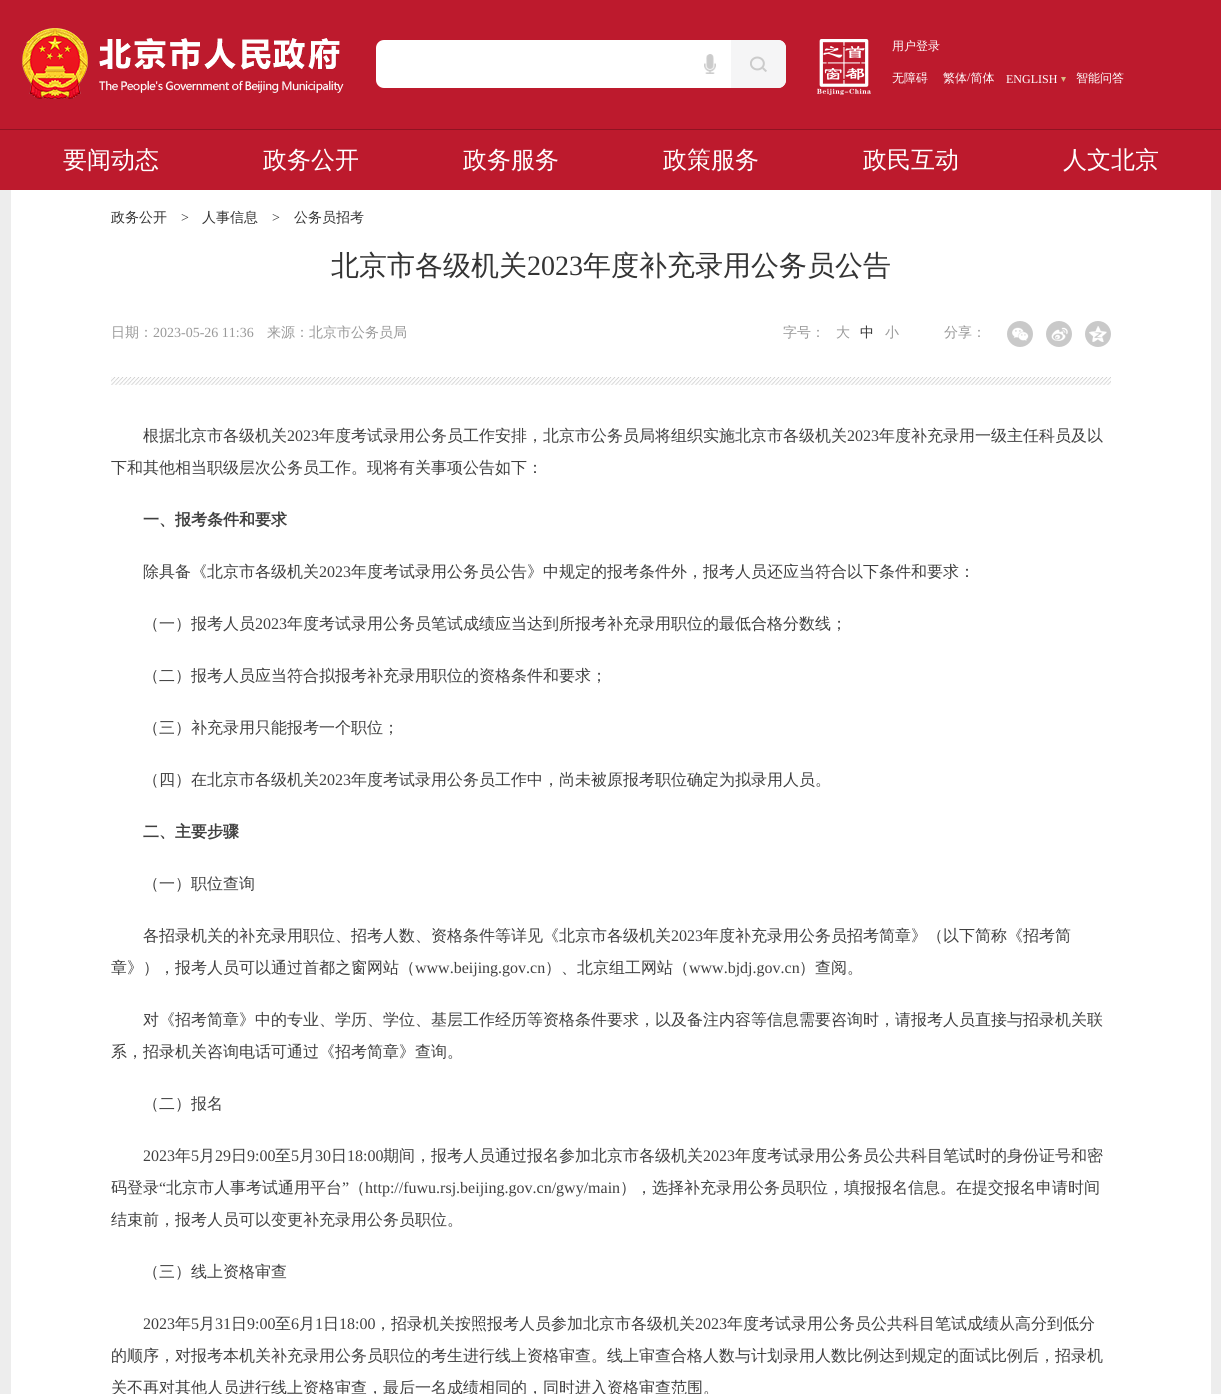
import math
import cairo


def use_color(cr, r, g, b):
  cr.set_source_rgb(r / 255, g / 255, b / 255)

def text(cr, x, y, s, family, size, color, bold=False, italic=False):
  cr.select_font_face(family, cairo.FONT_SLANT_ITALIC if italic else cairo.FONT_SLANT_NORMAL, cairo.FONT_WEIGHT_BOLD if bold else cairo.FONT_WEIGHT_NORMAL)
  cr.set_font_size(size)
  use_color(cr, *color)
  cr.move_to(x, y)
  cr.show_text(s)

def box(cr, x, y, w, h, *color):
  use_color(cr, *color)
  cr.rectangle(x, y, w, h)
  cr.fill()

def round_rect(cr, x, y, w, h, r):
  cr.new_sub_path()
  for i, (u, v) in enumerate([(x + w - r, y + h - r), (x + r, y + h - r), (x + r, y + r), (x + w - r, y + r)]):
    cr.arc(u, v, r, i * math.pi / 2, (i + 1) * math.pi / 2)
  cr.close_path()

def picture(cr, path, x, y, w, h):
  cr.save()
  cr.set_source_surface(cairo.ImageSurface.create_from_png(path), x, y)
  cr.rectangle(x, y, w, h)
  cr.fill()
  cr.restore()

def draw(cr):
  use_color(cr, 237, 237, 237)
  cr.paint()
  box(cr, 0, 0, 1221, 129, 189, 26, 45)
  box(cr, 0, 129, 1221, 1, 143, 19, 34)
  picture(cr, "img_01.png", 22, 28, 322, 71)
  use_color(cr, 255, 255, 255)
  round_rect(cr, 376, 40, 410, 48, 8)
  cr.fill()
  picture(cr, "img_02.png", 704, 54, 12, 20)
  use_color(cr, 245, 245, 246)
  cr.new_path()
  cr.move_to(731, 40)
  cr.line_to(778, 40)
  cr.curve_to(782.5, 40, 786, 43.5, 786, 48)
  cr.line_to(786, 80)
  cr.curve_to(786, 84.5, 782.5, 88, 778, 88)
  cr.line_to(731, 88)
  cr.close_path()
  cr.fill()
  picture(cr, "img_03.png", 750, 56, 17, 16)
  picture(cr, "img_04.png", 817, 39, 54, 56)
  picture(cr, "img_05.png", 1061, 77, 5, 5)
  box(cr, 0, 130, 1221, 60, 189, 26, 45)
  box(cr, 11, 190, 1200, 1204, 255, 255, 255)
  use_color(cr, 201, 201, 201)
  cr.arc(1020, 334, 13, 0, 2 * math.pi)
  cr.fill()
  picture(cr, "img_06.png", 1012, 327, 17, 14)
  cr.arc(1059, 334, 13, 0, 2 * math.pi)
  cr.fill()
  picture(cr, "img_07.png", 1051, 327, 17, 14)
  cr.arc(1098, 334, 13, 0, 2 * math.pi)
  cr.fill()
  picture(cr, "img_08.png", 1089, 326, 18, 16)
  picture(cr, "img_09.png", 111, 377, 1000, 8)
  text(cr, 892, 50, "用户登录", "WenQuanYi Zen Hei Medium", 12, (255, 255, 255))
  text(cr, 892, 82, "无障碍", "WenQuanYi Zen Hei Medium", 12, (255, 255, 255))
  text(cr, 943, 82, "繁体 简体", "WenQuanYi Zen Hei Medium", 12, (255, 255, 255))
  text(cr, 1076, 82, "智能问答", "WenQuanYi Zen Hei Medium", 12, (255, 255, 255))
  text(cr, 967, 81, "/", "Liberation Serif", 12, (255, 255, 255))
  text(cr, 1006, 83, "ENGLISH", "Liberation Serif", 12, (255, 255, 255))
  text(cr, 63, 168, "要闻动态", "WenQuanYi Zen Hei Medium", 24, (255, 255, 255))
  text(cr, 263, 168, "政务公开", "WenQuanYi Zen Hei Medium", 24, (255, 255, 255))
  text(cr, 463, 168, "政务服务", "WenQuanYi Zen Hei Medium", 24, (255, 255, 255))
  text(cr, 663, 168, "政策服务", "WenQuanYi Zen Hei Medium", 24, (255, 255, 255))
  text(cr, 863, 168, "政民互动", "WenQuanYi Zen Hei Medium", 24, (255, 255, 255))
  text(cr, 1063, 168, "人文北京", "WenQuanYi Zen Hei Medium", 24, (255, 255, 255))
  text(cr, 111, 222, "政务公开", "WenQuanYi Zen Hei Medium", 14, (51, 51, 51))
  text(cr, 181, 222, ">", "Liberation Serif", 14, (51, 51, 51))
  text(cr, 202, 222, "人事信息", "WenQuanYi Zen Hei Medium", 14, (51, 51, 51))
  text(cr, 272, 222, ">", "Liberation Serif", 14, (51, 51, 51))
  text(cr, 294, 222, "公务员招考", "WenQuanYi Zen Hei Medium", 14, (51, 51, 51))
  text(cr, 331, 275, "北京市各级机关", "WenQuanYi Zen Hei Medium", 28, (51, 51, 51))
  text(cr, 527, 275, "2023", "Liberation Serif", 28, (51, 51, 51))
  text(cr, 583, 275, "年度补充录用公务员公告", "WenQuanYi Zen Hei Medium", 28, (51, 51, 51))
  text(cr, 111, 337, "日期：", "WenQuanYi Zen Hei Medium", 14, (153, 153, 153))
  text(cr, 153, 337, "2023-05-26 11:36", "Liberation Serif", 14, (153, 153, 153))
  text(cr, 267, 337, "来源：北京市公务员局", "WenQuanYi Zen Hei Medium", 14, (153, 153, 153))
  text(cr, 783, 337, "字号：", "WenQuanYi Zen Hei Medium", 14, (153, 153, 153))
  text(cr, 836, 337, "大", "WenQuanYi Zen Hei Medium", 14, (153, 153, 153))
  text(cr, 860, 337, "中", "WenQuanYi Zen Hei Medium", 14, (51, 51, 51))
  text(cr, 885, 337, "小", "WenQuanYi Zen Hei Medium", 14, (153, 153, 153))
  text(cr, 944, 337, "分享：", "WenQuanYi Zen Hei Medium", 14, (153, 153, 153))
  text(cr, 143, 441, "根据北京市各级机关", "WenQuanYi Zen Hei Medium", 16, (64, 64, 64))
  text(cr, 287, 441, "2023", "Liberation Serif", 16, (64, 64, 64))
  text(cr, 319, 441, "年度考试录用公务员工作安排，北京市公务员局将组织实施北京市各级机关", "WenQuanYi Zen Hei Medium", 16, (64, 64, 64))
  text(cr, 847, 441, "2023", "Liberation Serif", 16, (64, 64, 64))
  text(cr, 879, 441, "年度补充录用一级主任科员及以", "WenQuanYi Zen Hei Medium", 16, (64, 64, 64))
  text(cr, 111, 473, "下和其他相当职级层次公务员工作。现将有关事项公告如下：", "WenQuanYi Zen Hei Medium", 16, (64, 64, 64))
  text(cr, 143, 525, "一、报考条件和要求", "WenQuanYi Zen Hei", 16, (64, 64, 64), bold=True)
  text(cr, 143, 577, "除具备《北京市各级机关", "WenQuanYi Zen Hei Medium", 16, (64, 64, 64))
  text(cr, 319, 577, "2023", "Liberation Serif", 16, (64, 64, 64))
  text(cr, 351, 577, "年度考试录用公务员公告》中规定的报考条件外，报考人员还应当符合以下条件和要求：", "WenQuanYi Zen Hei Medium", 16, (64, 64, 64))
  text(cr, 143, 629, "（一）报考人员", "WenQuanYi Zen Hei Medium", 16, (64, 64, 64))
  text(cr, 255, 629, "2023", "Liberation Serif", 16, (64, 64, 64))
  text(cr, 287, 629, "年度考试录用公务员笔试成绩应当达到所报考补充录用职位的最低合格分数线；", "WenQuanYi Zen Hei Medium", 16, (64, 64, 64))
  text(cr, 143, 681, "（二）报考人员应当符合拟报考补充录用职位的资格条件和要求；", "WenQuanYi Zen Hei Medium", 16, (64, 64, 64))
  text(cr, 143, 733, "（三）补充录用只能报考一个职位；", "WenQuanYi Zen Hei Medium", 16, (64, 64, 64))
  text(cr, 143, 785, "（四）在北京市各级机关", "WenQuanYi Zen Hei Medium", 16, (64, 64, 64))
  text(cr, 319, 785, "2023", "Liberation Serif", 16, (64, 64, 64))
  text(cr, 351, 785, "年度考试录用公务员工作中，尚未被原报考职位确定为拟录用人员。", "WenQuanYi Zen Hei Medium", 16, (64, 64, 64))
  text(cr, 143, 837, "二、主要步骤", "WenQuanYi Zen Hei", 16, (64, 64, 64), bold=True)
  text(cr, 143, 889, "（一）职位查询", "WenQuanYi Zen Hei Medium", 16, (64, 64, 64))
  text(cr, 143, 941, "各招录机关的补充录用职位、招考人数、资格条件等详见《北京市各级机关", "WenQuanYi Zen Hei Medium", 16, (64, 64, 64))
  text(cr, 671, 941, "2023", "Liberation Serif", 16, (64, 64, 64))
  text(cr, 703, 941, "年度补充录用公务员招考简章》（以下简称《招考简", "WenQuanYi Zen Hei Medium", 16, (64, 64, 64))
  text(cr, 111, 973, "章》），报考人员可以通过首都之窗网站（", "WenQuanYi Zen Hei Medium", 16, (64, 64, 64))
  text(cr, 415, 973, "www.beijing.gov.cn", "Liberation Serif", 16, (64, 64, 64))
  text(cr, 545, 973, "）、北京组工网站（", "WenQuanYi Zen Hei Medium", 16, (64, 64, 64))
  text(cr, 689, 973, "www.bjdj.gov.cn", "Liberation Serif", 16, (64, 64, 64))
  text(cr, 799, 973, "）查阅。", "WenQuanYi Zen Hei Medium", 16, (64, 64, 64))
  text(cr, 143, 1025, "对《招考简章》中的专业、学历、学位、基层工作经历等资格条件要求，以及备注内容等信息需要咨询时，请报考人员直接与招录机关联", "WenQuanYi Zen Hei Medium", 16, (64, 64, 64))
  text(cr, 111, 1057, "系，招录机关咨询电话可通过《招考简章》查询。", "WenQuanYi Zen Hei Medium", 16, (64, 64, 64))
  text(cr, 143, 1109, "（二）报名", "WenQuanYi Zen Hei Medium", 16, (64, 64, 64))
  text(cr, 143, 1161, "2023", "Liberation Serif", 16, (64, 64, 64))
  text(cr, 175, 1161, "年", "WenQuanYi Zen Hei Medium", 16, (64, 64, 64))
  text(cr, 191, 1161, "5", "Liberation Serif", 16, (64, 64, 64))
  text(cr, 199, 1161, "月", "WenQuanYi Zen Hei Medium", 16, (64, 64, 64))
  text(cr, 215, 1161, "29", "Liberation Serif", 16, (64, 64, 64))
  text(cr, 231, 1161, "日", "WenQuanYi Zen Hei Medium", 16, (64, 64, 64))
  text(cr, 247, 1161, "9:00", "Liberation Serif", 16, (64, 64, 64))
  text(cr, 275, 1161, "至", "WenQuanYi Zen Hei Medium", 16, (64, 64, 64))
  text(cr, 291, 1161, "5", "Liberation Serif", 16, (64, 64, 64))
  text(cr, 299, 1161, "月", "WenQuanYi Zen Hei Medium", 16, (64, 64, 64))
  text(cr, 315, 1161, "30", "Liberation Serif", 16, (64, 64, 64))
  text(cr, 331, 1161, "日", "WenQuanYi Zen Hei Medium", 16, (64, 64, 64))
  text(cr, 347, 1161, "18:00", "Liberation Serif", 16, (64, 64, 64))
  text(cr, 383, 1161, "期间，报考人员通过报名参加北京市各级机关", "WenQuanYi Zen Hei Medium", 16, (64, 64, 64))
  text(cr, 703, 1161, "2023", "Liberation Serif", 16, (64, 64, 64))
  text(cr, 735, 1161, "年度考试录用公务员公共科目笔试时的身份证号和密", "WenQuanYi Zen Hei Medium", 16, (64, 64, 64))
  text(cr, 111, 1193, "码登录", "WenQuanYi Zen Hei Medium", 16, (64, 64, 64))
  text(cr, 159, 1193, "“", "Liberation Serif", 16, (64, 64, 64))
  text(cr, 166, 1193, "北京市人事考试通用平台", "WenQuanYi Zen Hei Medium", 16, (64, 64, 64))
  text(cr, 342, 1193, "”", "Liberation Serif", 16, (64, 64, 64))
  text(cr, 349, 1193, "（", "WenQuanYi Zen Hei Medium", 16, (64, 64, 64))
  text(cr, 365, 1193, "http://fuwu.rsj.beijing.gov.cn/gwy/main", "Liberation Serif", 16, (64, 64, 64))
  text(cr, 620, 1193, "），选择补充录用公务员职位，填报报名信息。在提交报名申请时间", "WenQuanYi Zen Hei Medium", 16, (64, 64, 64))
  text(cr, 111, 1225, "结束前，报考人员可以变更补充录用公务员职位。", "WenQuanYi Zen Hei Medium", 16, (64, 64, 64))
  text(cr, 143, 1277, "（三）线上资格审查", "WenQuanYi Zen Hei Medium", 16, (64, 64, 64))
  text(cr, 143, 1329, "2023", "Liberation Serif", 16, (64, 64, 64))
  text(cr, 175, 1329, "年", "WenQuanYi Zen Hei Medium", 16, (64, 64, 64))
  text(cr, 191, 1329, "5", "Liberation Serif", 16, (64, 64, 64))
  text(cr, 199, 1329, "月", "WenQuanYi Zen Hei Medium", 16, (64, 64, 64))
  text(cr, 215, 1329, "31", "Liberation Serif", 16, (64, 64, 64))
  text(cr, 231, 1329, "日", "WenQuanYi Zen Hei Medium", 16, (64, 64, 64))
  text(cr, 247, 1329, "9:00", "Liberation Serif", 16, (64, 64, 64))
  text(cr, 275, 1329, "至", "WenQuanYi Zen Hei Medium", 16, (64, 64, 64))
  text(cr, 291, 1329, "6", "Liberation Serif", 16, (64, 64, 64))
  text(cr, 299, 1329, "月", "WenQuanYi Zen Hei Medium", 16, (64, 64, 64))
  text(cr, 315, 1329, "1", "Liberation Serif", 16, (64, 64, 64))
  text(cr, 323, 1329, "日", "WenQuanYi Zen Hei Medium", 16, (64, 64, 64))
  text(cr, 339, 1329, "18:00", "Liberation Serif", 16, (64, 64, 64))
  text(cr, 375, 1329, "，招录机关按照报考人员参加北京市各级机关", "WenQuanYi Zen Hei Medium", 16, (64, 64, 64))
  text(cr, 695, 1329, "2023", "Liberation Serif", 16, (64, 64, 64))
  text(cr, 727, 1329, "年度考试录用公务员公共科目笔试成绩从高分到低分", "WenQuanYi Zen Hei Medium", 16, (64, 64, 64))
  text(cr, 111, 1361, "的顺序，对报考本机关补充录用公务员职位的考生进行线上资格审查。线上审查合格人数与计划录用人数比例达到规定的面试比例后，招录机", "WenQuanYi Zen Hei Medium", 16, (64, 64, 64))
  text(cr, 111, 1393, "关不再对其他人员进行线上资格审查，最后一名成绩相同的，同时进入资格审查范围。", "WenQuanYi Zen Hei Medium", 16, (64, 64, 64))


surface = cairo.ImageSurface(cairo.FORMAT_RGB24, 1221, 1394)
cr = cairo.Context(surface)
options = cairo.FontOptions()
options.set_hint_metrics(cairo.HINT_METRICS_OFF)
options.set_hint_style(cairo.HINT_STYLE_NONE)
cr.set_font_options(options)
cr.set_miter_limit(4)
draw(cr)
surface.write_to_png("out.png")
